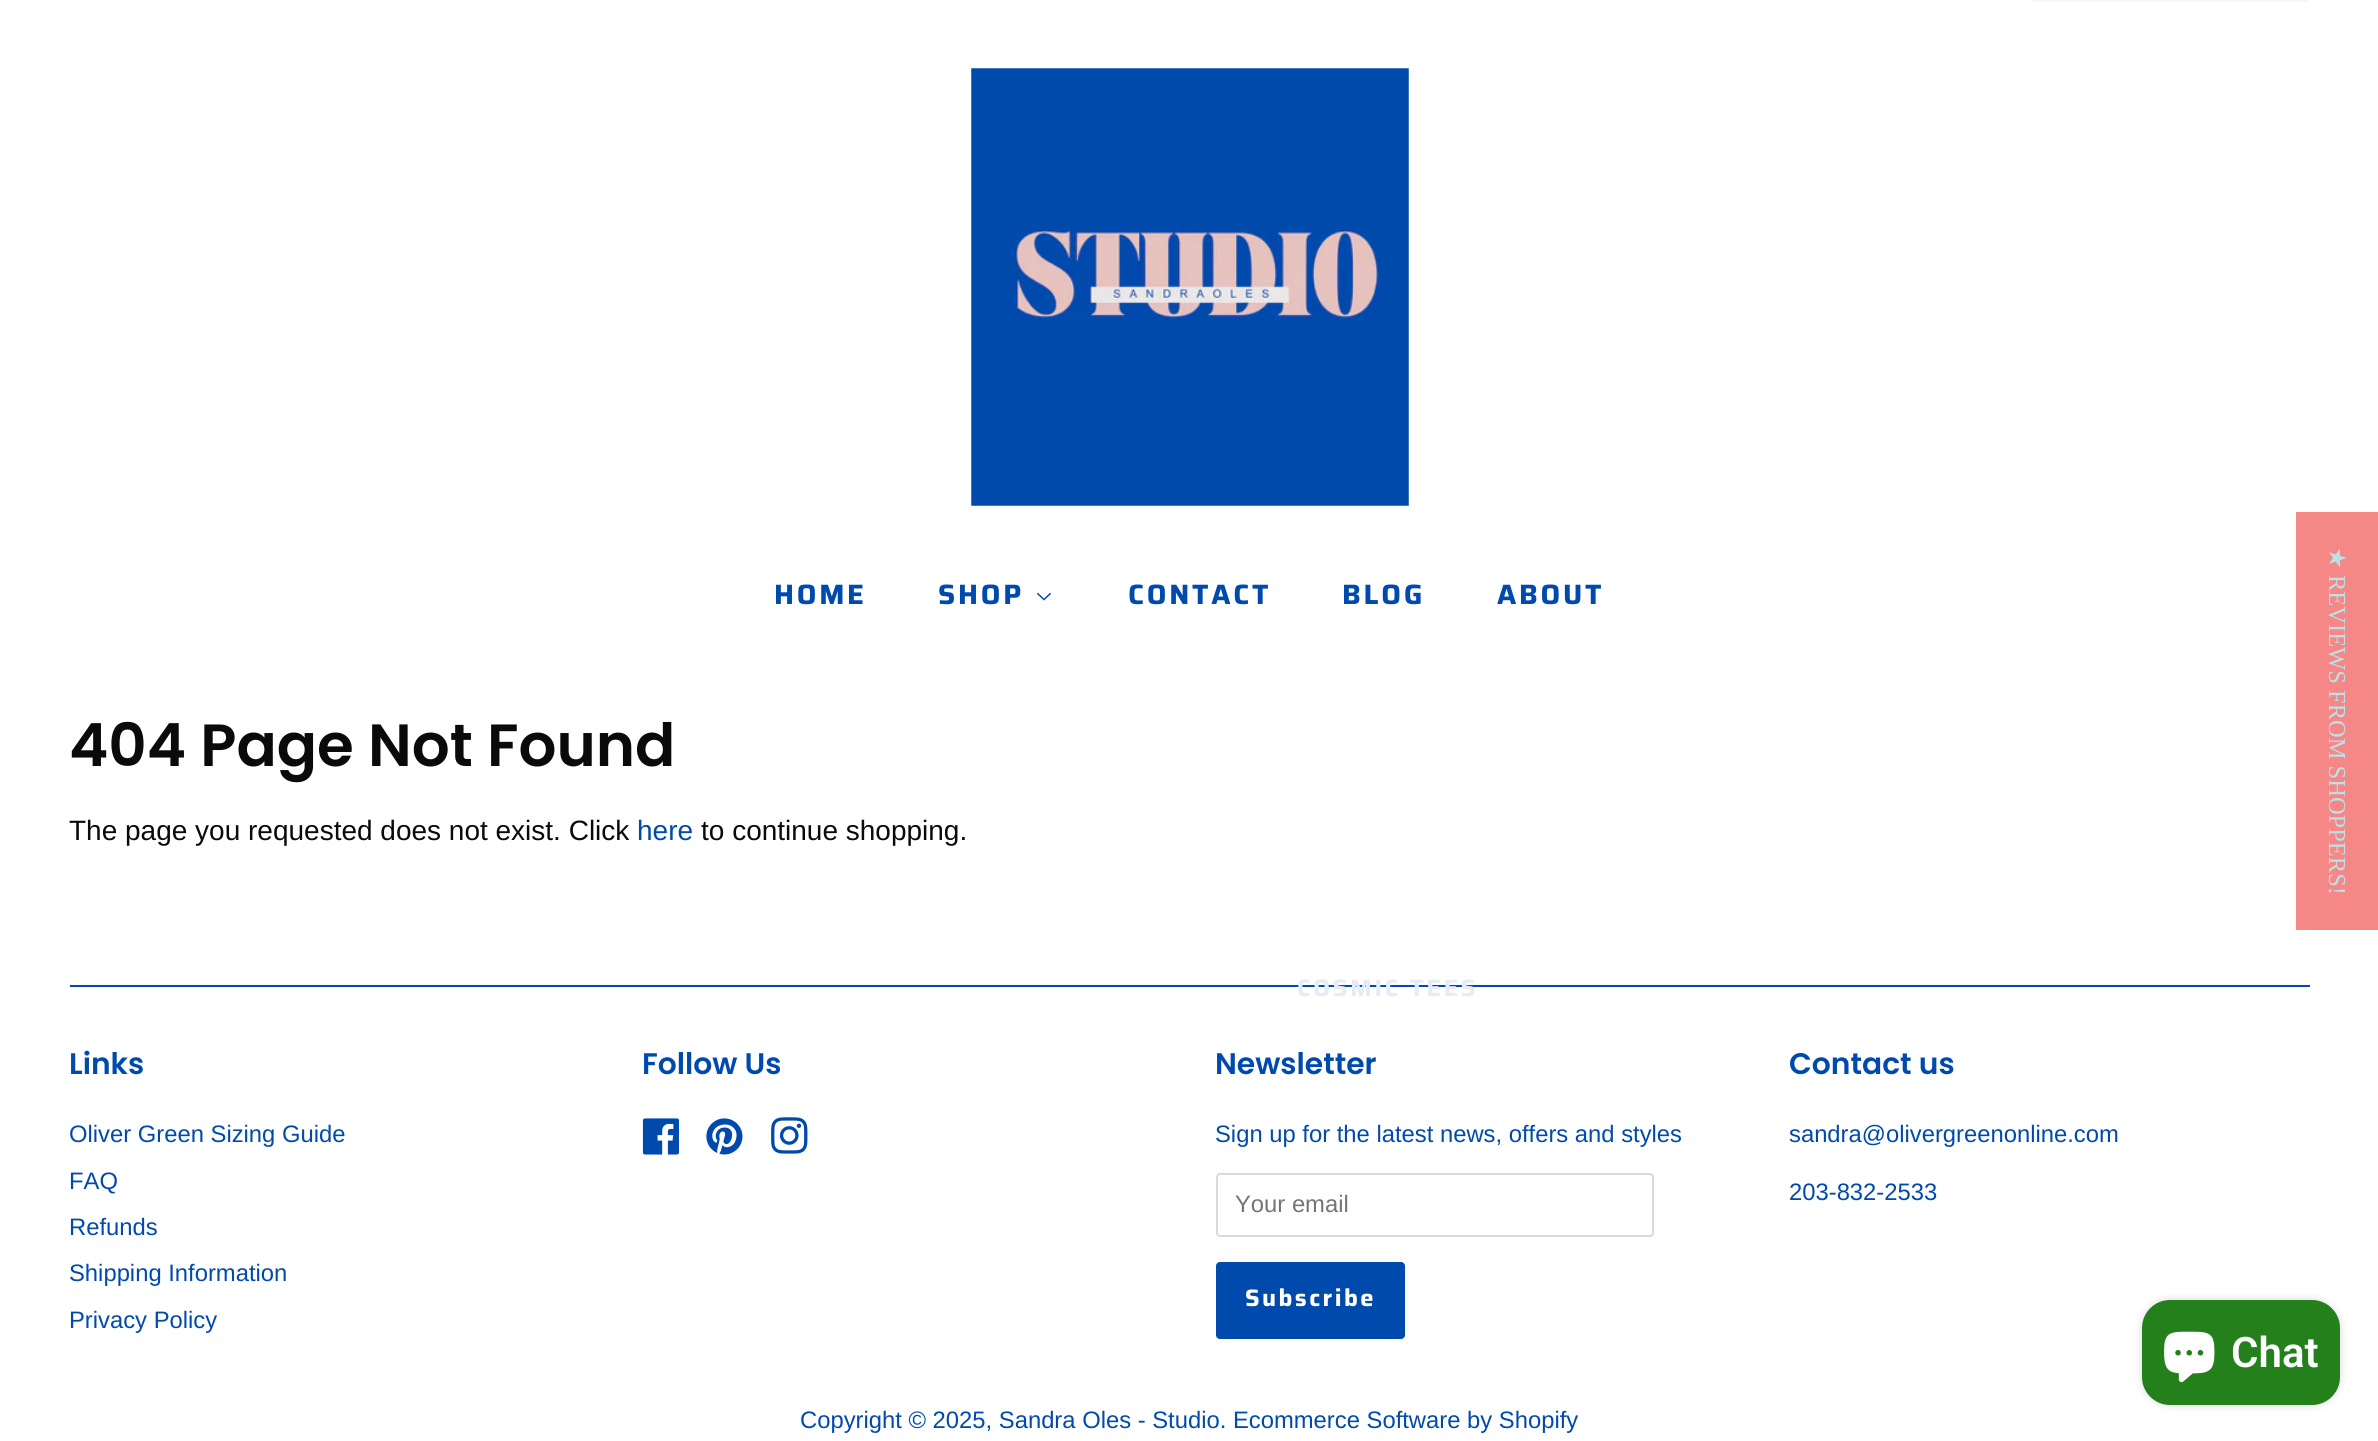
import math
import cairo


def use_color(cr, r, g, b):
  cr.set_source_rgb(r / 255, g / 255, b / 255)

def text(cr, x, y, s, family, size, color, bold=False, italic=False):
  cr.select_font_face(family, cairo.FONT_SLANT_ITALIC if italic else cairo.FONT_SLANT_NORMAL, cairo.FONT_WEIGHT_BOLD if bold else cairo.FONT_WEIGHT_NORMAL)
  cr.set_font_size(size)
  use_color(cr, *color)
  cr.move_to(x, y)
  cr.show_text(s)

def spaced_text(cr, x, y, s, letter, word):
  cr.move_to(x, y)
  for ch in s:
    cr.show_text(ch)
    cr.rel_move_to(letter + word * (ch == ' '), 0)

def box(cr, x, y, w, h, *color):
  use_color(cr, *color)
  cr.rectangle(x, y, w, h)
  cr.fill()

def round_rect(cr, x, y, w, h, r):
  cr.new_sub_path()
  for i, (u, v) in enumerate([(x + w - r, y + h - r), (x + r, y + h - r), (x + r, y + r), (x + w - r, y + r)]):
    cr.arc(u, v, r, i * math.pi / 2, (i + 1) * math.pi / 2)
  cr.close_path()

def shadow(cr, x, y, w, h, r, blur, alpha):
  cr.push_group_with_content(cairo.CONTENT_ALPHA)
  cr.set_operator(cairo.OPERATOR_SOURCE)
  for i in range(15, -16, -2):
    e = blur * i / 6
    if min(w, h) + 2 * e > 0:
      cr.set_source_rgba(0, 0, 0, alpha * math.erfc((i - 1) / 8.5) / 2)
      round_rect(cr, x - e, y - e, w + 2 * e, h + 2 * e, max(0, min(r + e + blur * .6, min(w, h) / 2 + e)))
      cr.fill()
  cr.mask(cr.pop_group())

def picture(cr, path, x, y, w, h):
  cr.save()
  cr.set_source_surface(cairo.ImageSurface.create_from_png(path), x, y)
  cr.rectangle(x, y, w, h)
  cr.fill()
  cr.restore()

def draw(cr):
  use_color(cr, 255, 255, 255)
  cr.paint()
  box(cr, 70, 985, 2240, 2, 0, 74, 173)
  use_color(cr, 247, 247, 247)
  round_rect(cr, 2030, -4, 280, 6, 4)
  cr.fill()
  picture(cr, "img_01.png", 971, 68, 438, 438)
  picture(cr, "img_02.png", 1037, 592, 14, 9)
  box(cr, 2296, 512, 82, 418, 245, 135, 135)
  picture(cr, "img_03.png", 642, 1118, 37, 37)
  picture(cr, "img_04.png", 706, 1118, 37, 37)
  picture(cr, "img_05.png", 771, 1117, 37, 37)
  round_rect(cr, 1217, 1174, 436, 62, 3)
  use_color(cr, 218, 218, 218)
  cr.stroke()
  use_color(cr, 0, 74, 173)
  round_rect(cr, 1216, 1262, 189, 77, 4)
  cr.fill()
  use_color(cr, 0, 0, 0)
  shadow(cr, 2142, 1300, 198, 105, 28, 4.5, 0.15)
  use_color(cr, 35, 128, 27)
  round_rect(cr, 2142, 1300, 198, 105, 28)
  cr.fill()
  picture(cr, "img_06.png", 2164, 1331, 51, 52)
  text(cr, 69, 766, "404 Page Not Found", "Poppins SemiBold", 59.5, (11, 10, 10))
  text(cr, 69, 840, "The page you requested does not exist. Click", "Liberation Sans", 28, (11, 10, 10))
  text(cr, 637, 840, "here", "Liberation Sans", 28, (0, 74, 173))
  text(cr, 701, 840, "to continue shopping.", "Liberation Sans", 28, (11, 10, 10))
  cr.select_font_face("Saira", cairo.FONT_SLANT_NORMAL, cairo.FONT_WEIGHT_BOLD)
  use_color(cr, 0, 74, 173)
  spaced_text(cr, 774, 604, "HOME", 2.75, 0)
  spaced_text(cr, 938, 604, "SHOP", 2.75, 0)
  cr.set_font_size(23.8)
  use_color(cr, 229, 236, 246)
  spaced_text(cr, 1297, 996, "COSMIC TEES", 2.75, 0)
  cr.set_font_size(28)
  use_color(cr, 0, 74, 173)
  spaced_text(cr, 1128, 604, "CONTACT", 2.75, 0)
  spaced_text(cr, 1342, 604, "BLOG", 2.75, 0)
  spaced_text(cr, 1497, 604, "ABOUT", 2.75, 0)
  cr.save()
  cr.translate(2329, 547)
  cr.rotate(90 * math.pi / 180)
  text(cr, 0, 0, "★", "DejaVu Sans", 24.5, (185, 225, 230))
  cr.restore()
  cr.save()
  cr.translate(2329, 575)
  cr.rotate(90 * math.pi / 180)
  text(cr, 0, 0, "REVIEWS FROM SHOPPERS!", "Liberation Serif", 24.5, (185, 225, 230))
  cr.restore()
  text(cr, 69, 1074, "Links", "Poppins SemiBold", 29.75, (0, 74, 173))
  text(cr, 69, 1142, "Oliver Green Sizing Guide", "Liberation Sans", 23.8, (0, 74, 173))
  text(cr, 69, 1189, "FAQ", "Liberation Sans", 23.8, (0, 74, 173))
  text(cr, 69, 1235, "Refunds", "Liberation Sans", 23.8, (0, 74, 173))
  text(cr, 69, 1281, "Shipping Information", "Liberation Sans", 23.8, (0, 74, 173))
  text(cr, 69, 1328, "Privacy Policy", "Liberation Sans", 23.8, (0, 74, 173))
  text(cr, 642, 1074, "Follow Us", "Poppins SemiBold", 29.75, (0, 74, 173))
  text(cr, 1215, 1074, "Newsletter", "Poppins SemiBold", 29.75, (0, 74, 173))
  text(cr, 1215, 1142, "Sign up for the latest news, offers and styles", "Liberation Sans", 23.8, (0, 74, 173))
  text(cr, 1235, 1212, "Your email", "Liberation Sans", 23.8, (117, 117, 117))
  cr.select_font_face("Saira", cairo.FONT_SLANT_NORMAL, cairo.FONT_WEIGHT_BOLD)
  use_color(cr, 255, 255, 255)
  spaced_text(cr, 1245, 1306, "Subscribe", 2.4, 0)
  text(cr, 1789, 1074, "Contact us", "Poppins SemiBold", 29.75, (0, 74, 173))
  text(cr, 1789, 1142, "sandra@olivergreenonline.com", "Liberation Sans", 23.8, (0, 74, 173))
  text(cr, 1789, 1200, "203-832-2533", "Liberation Sans", 23.8, (0, 74, 173))
  text(cr, 800, 1428, "Copyright © 2025, Sandra Oles - Studio. Ecommerce Software by Shopify", "Liberation Sans", 23.8, (0, 74, 173))
  text(cr, 2231, 1367, "Chat", "Roboto SemiBold", 42, (255, 255, 255))


surface = cairo.ImageSurface(cairo.FORMAT_RGB24, 2378, 1441)
cr = cairo.Context(surface)
options = cairo.FontOptions()
options.set_hint_metrics(cairo.HINT_METRICS_OFF)
options.set_hint_style(cairo.HINT_STYLE_NONE)
cr.set_font_options(options)
cr.set_miter_limit(4)
draw(cr)
surface.write_to_png("out.png")
